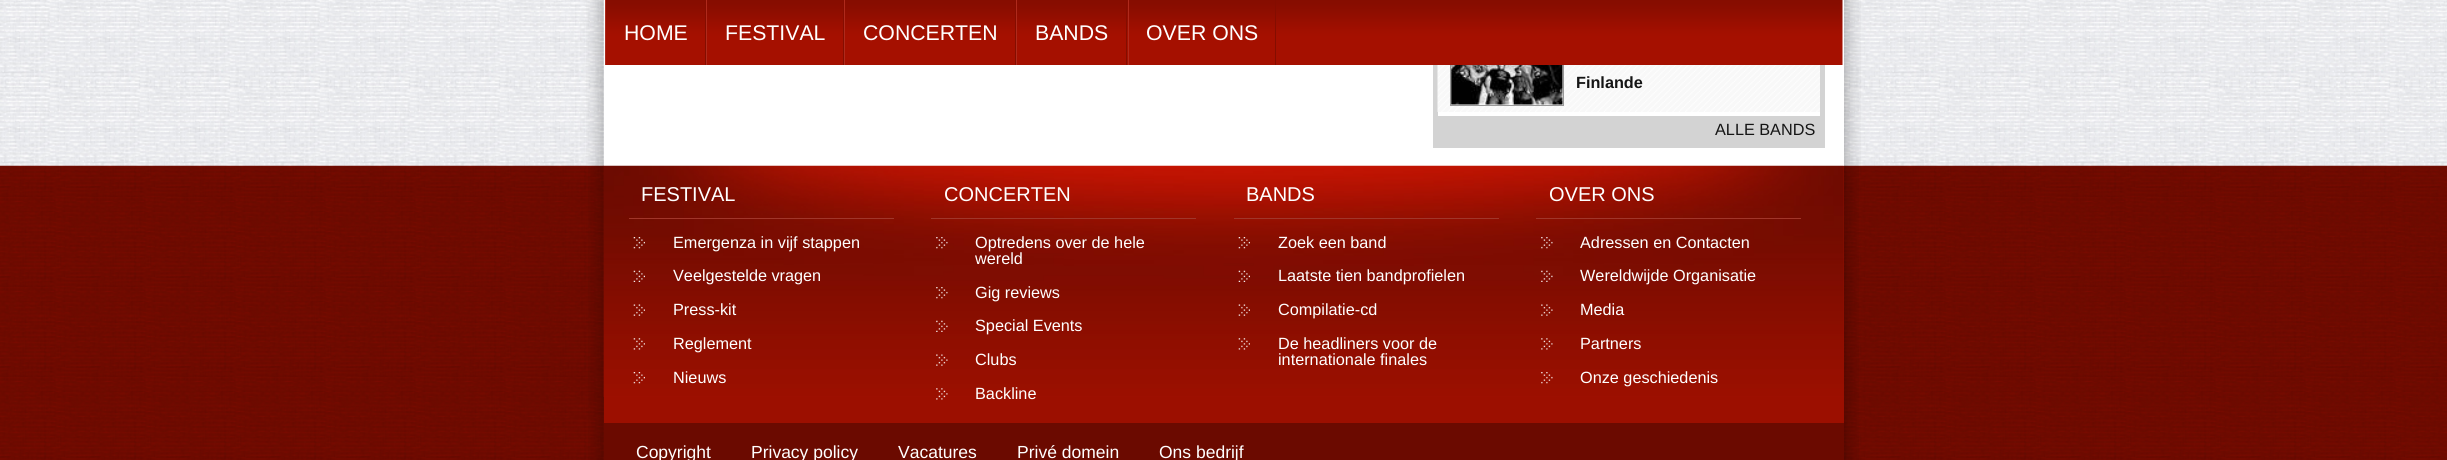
import math
import cairo


def use_color(cr, r, g, b):
  cr.set_source_rgb(r / 255, g / 255, b / 255)

def text(cr, x, y, s, family, size, color, bold=False, italic=False):
  cr.select_font_face(family, cairo.FONT_SLANT_ITALIC if italic else cairo.FONT_SLANT_NORMAL, cairo.FONT_WEIGHT_BOLD if bold else cairo.FONT_WEIGHT_NORMAL)
  cr.set_font_size(size)
  use_color(cr, *color)
  cr.move_to(x, y)
  cr.show_text(s)

def box(cr, x, y, w, h, *color):
  use_color(cr, *color)
  cr.rectangle(x, y, w, h)
  cr.fill()

def picture(cr, path, x, y, w, h):
  cr.save()
  cr.set_source_surface(cairo.ImageSurface.create_from_png(path), x, y)
  cr.rectangle(x, y, w, h)
  cr.fill()
  cr.restore()

def draw(cr):
  use_color(cr, 255, 255, 255)
  cr.paint()
  picture(cr, "img_01.png", 0, 165, 2447, 295)
  picture(cr, "img_03.png", 0, 0, 2447, 166)
  picture(cr, "img_04.png", 586, 0, 1275, 166)
  box(cr, 604, 0, 1240, 166, 255, 255, 255)
  cr.rectangle(1435.5, -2.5, 387, 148)
  use_color(cr, 211, 211, 211)
  cr.set_line_width(5)
  cr.stroke()
  picture(cr, "img_05.png", 1437, 65, 383, 47)
  cr.rectangle(1450.5, 41.5, 113, 64)
  use_color(cr, 153, 153, 153)
  cr.set_line_width(1)
  cr.stroke()
  picture(cr, "img_02.png", 606, 0, 1237, 65)
  box(cr, 705, 0, 1, 65, 132, 13, 0)
  box(cr, 605, 0, 1, 65, 175, 42, 28)
  box(cr, 843, 0, 1, 65, 132, 13, 0)
  box(cr, 706, 0, 1, 65, 175, 42, 28)
  box(cr, 1015, 0, 1, 65, 132, 13, 0)
  box(cr, 844, 0, 1, 65, 175, 42, 28)
  box(cr, 1126, 0, 1, 65, 132, 13, 0)
  box(cr, 1016, 0, 1, 65, 175, 42, 28)
  box(cr, 1275, 0, 1, 65, 132, 13, 0)
  box(cr, 1128, 0, 1, 65, 175, 42, 28)
  picture(cr, "img_06.png", 1451, 65, 112, 40)
  box(cr, 1438, 116, 382, 27, 211, 211, 211)
  picture(cr, "img_07.png", 588, 165, 1271, 295)
  box(cr, 604, 166, 1240, 257, 156, 15, 0)
  picture(cr, "img_08.png", 603, 165, 1241, 232)
  box(cr, 629, 218, 265, 1, 161, 54, 42)
  picture(cr, "img_09.png", 633, 237, 12, 12)
  picture(cr, "img_10.png", 633, 270, 12, 12)
  picture(cr, "img_11.png", 633, 304, 12, 12)
  picture(cr, "img_12.png", 633, 338, 12, 12)
  picture(cr, "img_13.png", 633, 372, 12, 12)
  box(cr, 931, 218, 265, 1, 161, 54, 42)
  picture(cr, "img_14.png", 936, 237, 12, 12)
  picture(cr, "img_15.png", 936, 287, 12, 12)
  picture(cr, "img_16.png", 936, 320, 12, 12)
  picture(cr, "img_17.png", 936, 354, 12, 12)
  picture(cr, "img_18.png", 936, 388, 12, 12)
  box(cr, 1234, 218, 265, 1, 161, 54, 42)
  picture(cr, "img_19.png", 1238, 237, 12, 12)
  picture(cr, "img_20.png", 1238, 270, 12, 12)
  picture(cr, "img_11.png", 1238, 304, 12, 12)
  picture(cr, "img_12.png", 1238, 338, 12, 12)
  box(cr, 1536, 218, 265, 1, 161, 54, 42)
  picture(cr, "img_21.png", 1541, 237, 12, 12)
  picture(cr, "img_22.png", 1541, 270, 12, 12)
  picture(cr, "img_23.png", 1541, 304, 12, 12)
  picture(cr, "img_24.png", 1541, 338, 12, 12)
  picture(cr, "img_25.png", 1541, 372, 12, 12)
  box(cr, 604, 423, 1240, 37, 107, 10, 0)
  text(cr, 624, 40, "HOME", "Liberation Sans", 21.25, (255, 255, 255))
  text(cr, 725, 40, "FESTIVAL", "Liberation Sans", 21.25, (255, 255, 255))
  text(cr, 863, 40, "CONCERTEN", "Liberation Sans", 21.25, (255, 255, 255))
  text(cr, 1035, 40, "BANDS", "Liberation Sans", 21.25, (255, 255, 255))
  text(cr, 1146, 40, "OVER ONS", "Liberation Sans", 21.25, (255, 255, 255))
  text(cr, 1576, 88, "Finlande", "Liberation Sans", 16.25, (21, 21, 21), bold=True)
  text(cr, 1715, 135, "ALLE BANDS", "Liberation Sans", 16.25, (21, 21, 21))
  text(cr, 641, 201, "FESTIVAL", "Liberation Sans", 20, (255, 255, 255))
  text(cr, 673, 248, "Emergenza in vijf stappen", "Liberation Sans", 16.25, (255, 255, 255))
  text(cr, 673, 281, "Veelgestelde vragen", "Liberation Sans", 16.25, (255, 255, 255))
  text(cr, 673, 315, "Press-kit", "Liberation Sans", 16.25, (255, 255, 255))
  text(cr, 673, 349, "Reglement", "Liberation Sans", 16.25, (255, 255, 255))
  text(cr, 673, 383, "Nieuws", "Liberation Sans", 16.25, (255, 255, 255))
  text(cr, 944, 201, "CONCERTEN", "Liberation Sans", 20, (255, 255, 255))
  text(cr, 975, 248, "Optredens over de hele", "Liberation Sans", 16.25, (255, 255, 255))
  text(cr, 975, 264, "wereld", "Liberation Sans", 16.25, (255, 255, 255))
  text(cr, 975, 298, "Gig reviews", "Liberation Sans", 16.25, (255, 255, 255))
  text(cr, 975, 331, "Special Events", "Liberation Sans", 16.25, (255, 255, 255))
  text(cr, 975, 365, "Clubs", "Liberation Sans", 16.25, (255, 255, 255))
  text(cr, 975, 399, "Backline", "Liberation Sans", 16.25, (255, 255, 255))
  text(cr, 1246, 201, "BANDS", "Liberation Sans", 20, (255, 255, 255))
  text(cr, 1278, 248, "Zoek een band", "Liberation Sans", 16.25, (255, 255, 255))
  text(cr, 1278, 281, "Laatste tien bandprofielen", "Liberation Sans", 16.25, (255, 255, 255))
  text(cr, 1278, 315, "Compilatie-cd", "Liberation Sans", 16.25, (255, 255, 255))
  text(cr, 1278, 349, "De headliners voor de", "Liberation Sans", 16.25, (255, 255, 255))
  text(cr, 1278, 365, "internationale finales", "Liberation Sans", 16.25, (255, 255, 255))
  text(cr, 1549, 201, "OVER ONS", "Liberation Sans", 20, (255, 255, 255))
  text(cr, 1580, 248, "Adressen en Contacten", "Liberation Sans", 16.25, (255, 255, 255))
  text(cr, 1580, 281, "Wereldwijde Organisatie", "Liberation Sans", 16.25, (255, 255, 255))
  text(cr, 1580, 315, "Media", "Liberation Sans", 16.25, (255, 255, 255))
  text(cr, 1580, 349, "Partners", "Liberation Sans", 16.25, (255, 255, 255))
  text(cr, 1580, 383, "Onze geschiedenis", "Liberation Sans", 16.25, (255, 255, 255))
  text(cr, 636, 458, "Copyright", "Liberation Sans", 17.5, (255, 255, 255))
  text(cr, 751, 458, "Privacy policy", "Liberation Sans", 17.5, (255, 255, 255))
  text(cr, 898, 458, "Vacatures", "Liberation Sans", 17.5, (255, 255, 255))
  text(cr, 1017, 458, "Privé domein", "Liberation Sans", 17.5, (255, 255, 255))
  text(cr, 1159, 458, "Ons bedrijf", "Liberation Sans", 17.5, (255, 255, 255))


surface = cairo.ImageSurface(cairo.FORMAT_RGB24, 2447, 460)
cr = cairo.Context(surface)
options = cairo.FontOptions()
options.set_hint_metrics(cairo.HINT_METRICS_OFF)
options.set_hint_style(cairo.HINT_STYLE_NONE)
cr.set_font_options(options)
cr.set_miter_limit(4)
draw(cr)
surface.write_to_png("out.png")
